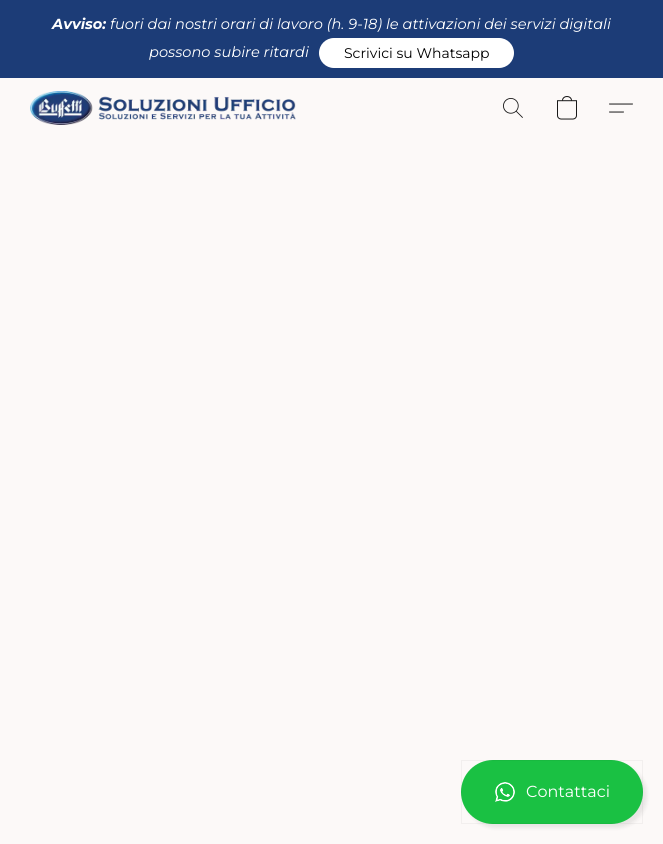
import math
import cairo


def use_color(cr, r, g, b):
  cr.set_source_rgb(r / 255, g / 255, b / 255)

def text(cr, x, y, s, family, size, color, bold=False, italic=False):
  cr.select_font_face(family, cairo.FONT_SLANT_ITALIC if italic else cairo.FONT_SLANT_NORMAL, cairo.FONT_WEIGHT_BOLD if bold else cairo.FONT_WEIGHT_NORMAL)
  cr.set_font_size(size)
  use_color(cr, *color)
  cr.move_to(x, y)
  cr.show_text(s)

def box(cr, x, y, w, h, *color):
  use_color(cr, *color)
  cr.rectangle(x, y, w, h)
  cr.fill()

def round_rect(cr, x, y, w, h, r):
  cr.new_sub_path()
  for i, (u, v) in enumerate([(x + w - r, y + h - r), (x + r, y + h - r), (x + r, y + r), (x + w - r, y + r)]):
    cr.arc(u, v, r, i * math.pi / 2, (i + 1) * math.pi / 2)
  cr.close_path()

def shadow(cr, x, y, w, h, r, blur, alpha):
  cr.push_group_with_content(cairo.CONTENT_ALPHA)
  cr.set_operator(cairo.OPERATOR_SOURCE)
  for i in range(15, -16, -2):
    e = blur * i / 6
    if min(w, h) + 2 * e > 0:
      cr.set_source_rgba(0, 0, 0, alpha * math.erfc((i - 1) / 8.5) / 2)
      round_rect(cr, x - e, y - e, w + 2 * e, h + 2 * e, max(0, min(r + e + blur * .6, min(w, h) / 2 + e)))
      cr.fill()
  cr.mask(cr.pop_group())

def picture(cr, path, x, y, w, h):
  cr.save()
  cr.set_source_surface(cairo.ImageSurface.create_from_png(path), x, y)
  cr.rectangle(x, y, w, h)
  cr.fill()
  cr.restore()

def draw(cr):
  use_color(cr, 252, 249, 248)
  cr.paint()
  box(cr, 0, 0, 663, 78, 28, 60, 119)
  use_color(cr, 255, 255, 255)
  round_rect(cr, 319, 38, 195, 30, 15)
  cr.fill()
  picture(cr, "img_01.png", 30, 91, 266, 34)
  picture(cr, "img_02.png", 503, 98, 20, 20)
  picture(cr, "img_03.png", 557, 96, 20, 24)
  picture(cr, "img_04.png", 609, 103, 24, 10)
  use_color(cr, 0, 0, 0)
  shadow(cr, 465, 764, 182, 64, 32, 2, 0.08)
  use_color(cr, 26, 193, 67)
  round_rect(cr, 461, 760, 182, 64, 32)
  cr.fill()
  cr.rectangle(461.5, 760.5, 181, 63)
  cr.set_source_rgba(0.086, 0.086, 0.086, 0.04)
  cr.set_line_width(1)
  cr.stroke()
  picture(cr, "img_05.png", 495, 782, 20, 20)
  text(cr, 52, 29, "Avviso:", "Montserrat Thin", 14.6, (255, 255, 255), italic=True)
  text(cr, 110, 29, "fuori dai nostri orari di lavoro (h. 9-18) le attivazioni dei servizi digitali", "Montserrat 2 Thin", 14.6, (255, 255, 255), italic=True)
  text(cr, 149, 57, "possono subire ritardi", "Montserrat 2 Thin", 14.6, (255, 255, 255), italic=True)
  text(cr, 344, 58, "Scrivici su Whatsapp", "Montserrat Thin", 14, (0, 0, 0))
  text(cr, 526, 797, "Contattaci", "Montserrat Thin", 16, (255, 255, 255))


surface = cairo.ImageSurface(cairo.FORMAT_RGB24, 663, 844)
cr = cairo.Context(surface)
options = cairo.FontOptions()
options.set_hint_metrics(cairo.HINT_METRICS_OFF)
options.set_hint_style(cairo.HINT_STYLE_NONE)
cr.set_font_options(options)
cr.set_miter_limit(4)
draw(cr)
surface.write_to_png("out.png")
